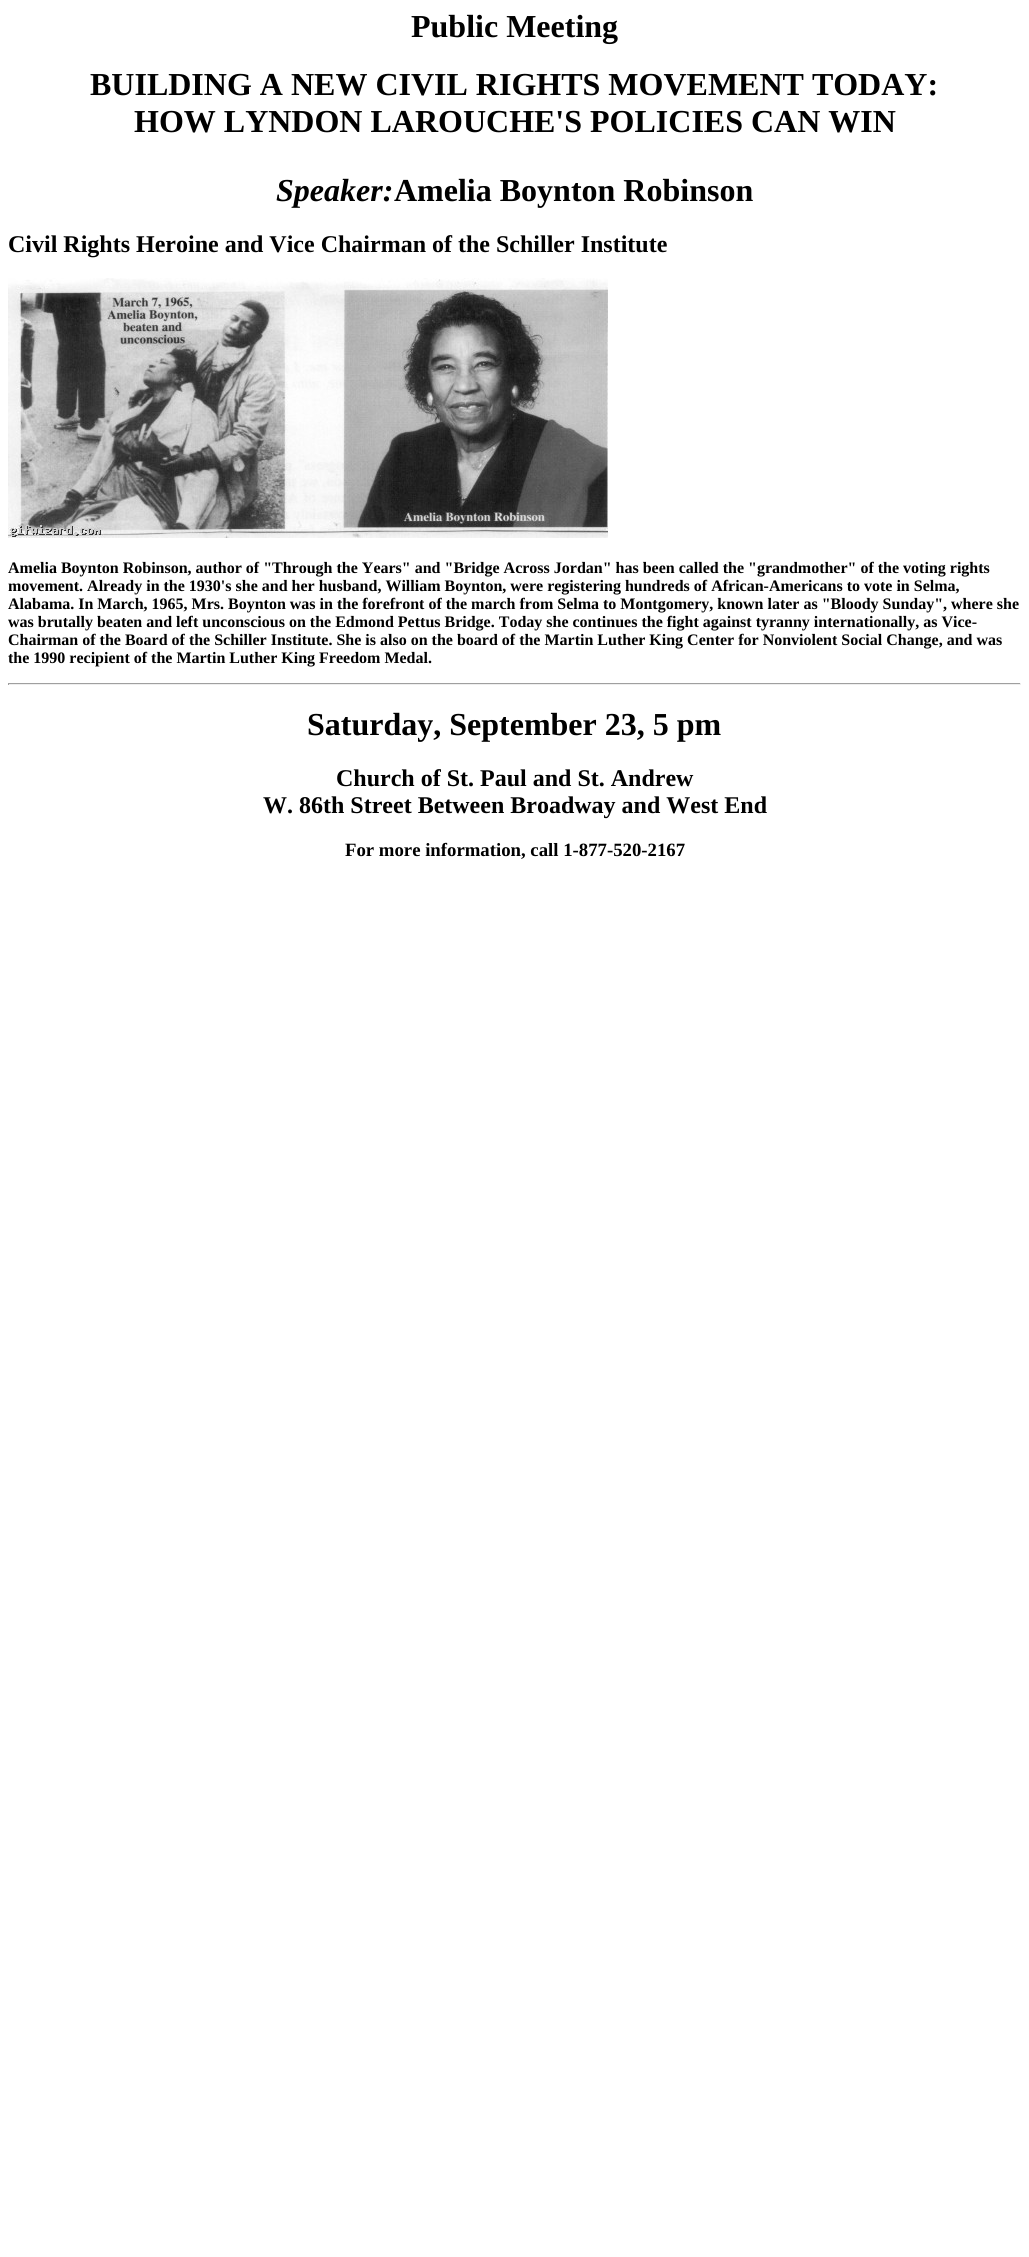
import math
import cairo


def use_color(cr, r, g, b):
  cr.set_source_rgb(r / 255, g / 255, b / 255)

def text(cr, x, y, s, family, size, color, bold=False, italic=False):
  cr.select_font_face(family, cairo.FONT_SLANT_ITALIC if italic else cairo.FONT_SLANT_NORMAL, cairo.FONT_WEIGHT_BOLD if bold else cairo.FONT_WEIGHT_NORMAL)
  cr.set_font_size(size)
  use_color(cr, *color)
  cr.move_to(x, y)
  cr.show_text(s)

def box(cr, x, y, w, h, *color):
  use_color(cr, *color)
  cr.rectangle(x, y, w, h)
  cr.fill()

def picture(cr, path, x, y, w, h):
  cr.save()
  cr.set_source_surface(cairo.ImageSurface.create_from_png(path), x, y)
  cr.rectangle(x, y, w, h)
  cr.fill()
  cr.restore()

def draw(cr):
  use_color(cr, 255, 255, 255)
  cr.paint()
  picture(cr, "img_01.png", 8, 278, 600, 260)
  box(cr, 8, 683, 1013, 1, 159, 159, 159)
  box(cr, 1020, 683, 1, 2, 238, 238, 238)
  box(cr, 8, 684, 1013, 1, 238, 238, 238)
  box(cr, 8, 683, 1, 2, 159, 159, 159)
  text(cr, 411, 37, "Public Meeting", "Liberation Serif", 32, (0, 0, 0), bold=True)
  text(cr, 90, 95, "BUILDING A NEW CIVIL RIGHTS MOVEMENT TODAY:", "Liberation Serif", 32, (0, 0, 0), bold=True)
  text(cr, 134, 132, "HOW LYNDON LAROUCHE'S POLICIES CAN WIN", "Liberation Serif", 32, (0, 0, 0), bold=True)
  text(cr, 276, 201, "Speaker:", "Liberation Serif", 32, (0, 0, 0), bold=True, italic=True)
  text(cr, 394, 201, "Amelia Boynton Robinson", "Liberation Serif", 32, (0, 0, 0), bold=True)
  text(cr, 8, 252, "Civil Rights Heroine and Vice Chairman of the Schiller Institute", "Liberation Serif", 24, (0, 0, 0), bold=True)
  text(cr, 8, 573, "Amelia Boynton Robinson, author of \"Through the Years\" and \"Bridge Across Jordan\" has been called the \"grandmother\" of the voting rights", "Liberation Serif", 16, (0, 0, 0), bold=True)
  text(cr, 8, 591, "movement. Already in the 1930's she and her husband, William Boynton, were registering hundreds of African-Americans to vote in Selma,", "Liberation Serif", 16, (0, 0, 0), bold=True)
  text(cr, 8, 609, "Alabama. In March, 1965, Mrs. Boynton was in the forefront of the march from Selma to Montgomery, known later as \"Bloody Sunday\", where she", "Liberation Serif", 16, (0, 0, 0), bold=True)
  text(cr, 8, 627, "was brutally beaten and left unconscious on the Edmond Pettus Bridge. Today she continues the fight against tyranny internationally, as Vice-", "Liberation Serif", 16, (0, 0, 0), bold=True)
  text(cr, 8, 645, "Chairman of the Board of the Schiller Institute. She is also on the board of the Martin Luther King Center for Nonviolent Social Change, and was", "Liberation Serif", 16, (0, 0, 0), bold=True)
  text(cr, 8, 663, "the 1990 recipient of the Martin Luther King Freedom Medal.", "Liberation Serif", 16, (0, 0, 0), bold=True)
  text(cr, 307, 735, "Saturday, September 23, 5 pm", "Liberation Serif", 32, (0, 0, 0), bold=True)
  text(cr, 336, 786, "Church of St. Paul and St. Andrew", "Liberation Serif", 24, (0, 0, 0), bold=True)
  text(cr, 263, 813, "W. 86th Street Between Broadway and West End", "Liberation Serif", 24, (0, 0, 0), bold=True)
  text(cr, 345, 856, "For more information, call 1-877-520-2167", "Liberation Serif", 18.75, (0, 0, 0), bold=True)


surface = cairo.ImageSurface(cairo.FORMAT_RGB24, 1029, 2257)
cr = cairo.Context(surface)
options = cairo.FontOptions()
options.set_hint_metrics(cairo.HINT_METRICS_OFF)
options.set_hint_style(cairo.HINT_STYLE_NONE)
cr.set_font_options(options)
cr.set_miter_limit(4)
draw(cr)
surface.write_to_png("out.png")
